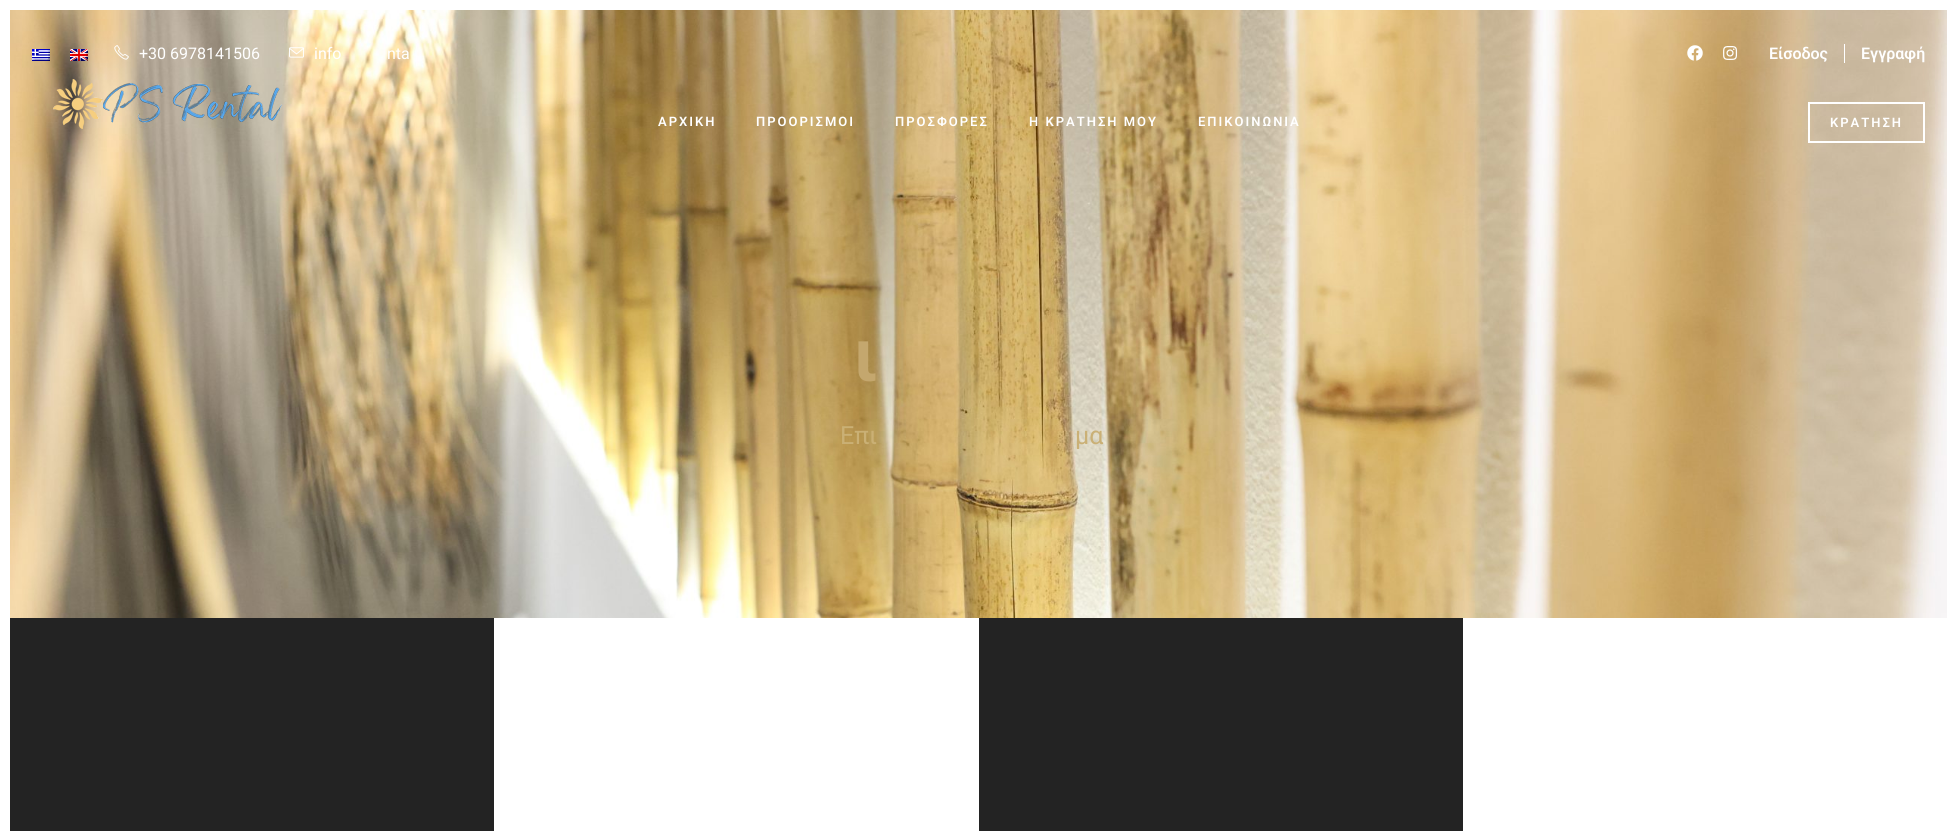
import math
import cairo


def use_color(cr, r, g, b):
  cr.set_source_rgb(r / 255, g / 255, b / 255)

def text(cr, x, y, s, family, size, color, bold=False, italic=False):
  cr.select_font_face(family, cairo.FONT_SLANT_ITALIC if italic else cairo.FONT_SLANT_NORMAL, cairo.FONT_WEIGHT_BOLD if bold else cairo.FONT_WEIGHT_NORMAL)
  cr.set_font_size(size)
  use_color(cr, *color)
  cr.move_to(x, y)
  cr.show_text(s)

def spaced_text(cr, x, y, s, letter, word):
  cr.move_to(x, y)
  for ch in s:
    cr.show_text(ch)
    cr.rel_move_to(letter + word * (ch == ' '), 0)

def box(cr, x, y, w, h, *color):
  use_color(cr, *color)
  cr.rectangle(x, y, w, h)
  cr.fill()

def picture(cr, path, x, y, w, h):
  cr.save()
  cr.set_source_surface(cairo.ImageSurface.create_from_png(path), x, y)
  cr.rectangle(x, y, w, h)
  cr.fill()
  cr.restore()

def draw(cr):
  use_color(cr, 255, 255, 255)
  cr.paint()
  picture(cr, "img_08.png", 10, 10, 1937, 608)
  picture(cr, "img_01.png", 32, 49, 18, 12)
  picture(cr, "img_02.png", 70, 49, 18, 12)
  picture(cr, "img_03.png", 114, 45, 15, 15)
  picture(cr, "img_04.png", 289, 47, 15, 11)
  picture(cr, "img_05.png", 1687, 45, 16, 16)
  picture(cr, "img_06.png", 1723, 46, 15, 14)
  box(cr, 1844, 44, 1, 19, 255, 255, 255)
  picture(cr, "img_07.png", 53, 79, 229, 50)
  cr.rectangle(1809, 103, 115, 39)
  cr.stroke()
  box(cr, 10, 618, 484, 213, 35, 35, 35)
  box(cr, 979, 618, 484, 213, 35, 35, 35)
  text(cr, 139, 59, "+30 6978141506", "Roboto", 16, (255, 255, 255))
  text(cr, 314, 59, "info", "Roboto", 16, (255, 255, 255))
  text(cr, 387, 59, "nta", "Roboto", 16, (255, 255, 255))
  text(cr, 1769, 59, "Είσοδος", "Roboto SemiBold", 16, (255, 255, 255))
  text(cr, 1861, 59, "Εγγραφή", "Roboto SemiBold", 16, (255, 255, 255))
  cr.set_font_size(13)
  spaced_text(cr, 658, 126, "ΑΡΧΙΚΗ", 2, 0)
  spaced_text(cr, 756, 126, "ΠΡΟΟΡΙΣΜΟΙ", 2, 0)
  spaced_text(cr, 895, 126, "ΠΡΟΣΦΟΡΕΣ", 2, 0)
  spaced_text(cr, 1029, 126, "Η ΚΡΑΤΗΣΗ ΜΟΥ", 2, 0)
  spaced_text(cr, 1198, 126, "ΕΠΙΚΟΙΝΩΝΙΑ", 2, 0)
  spaced_text(cr, 1830, 127, "ΚΡΑΤΗΣΗ", 2, 0)
  text(cr, 853, 381, "ι", "Roboto SemiBold", 75, (196, 167, 110))
  text(cr, 840, 444, "Επι", "Roboto", 25, (202, 176, 117))
  text(cr, 1075, 444, "μα", "Roboto", 25, (202, 176, 117))


surface = cairo.ImageSurface(cairo.FORMAT_RGB24, 1957, 831)
cr = cairo.Context(surface)
options = cairo.FontOptions()
options.set_hint_metrics(cairo.HINT_METRICS_OFF)
options.set_hint_style(cairo.HINT_STYLE_NONE)
cr.set_font_options(options)
cr.set_miter_limit(4)
draw(cr)
surface.write_to_png("out.png")
